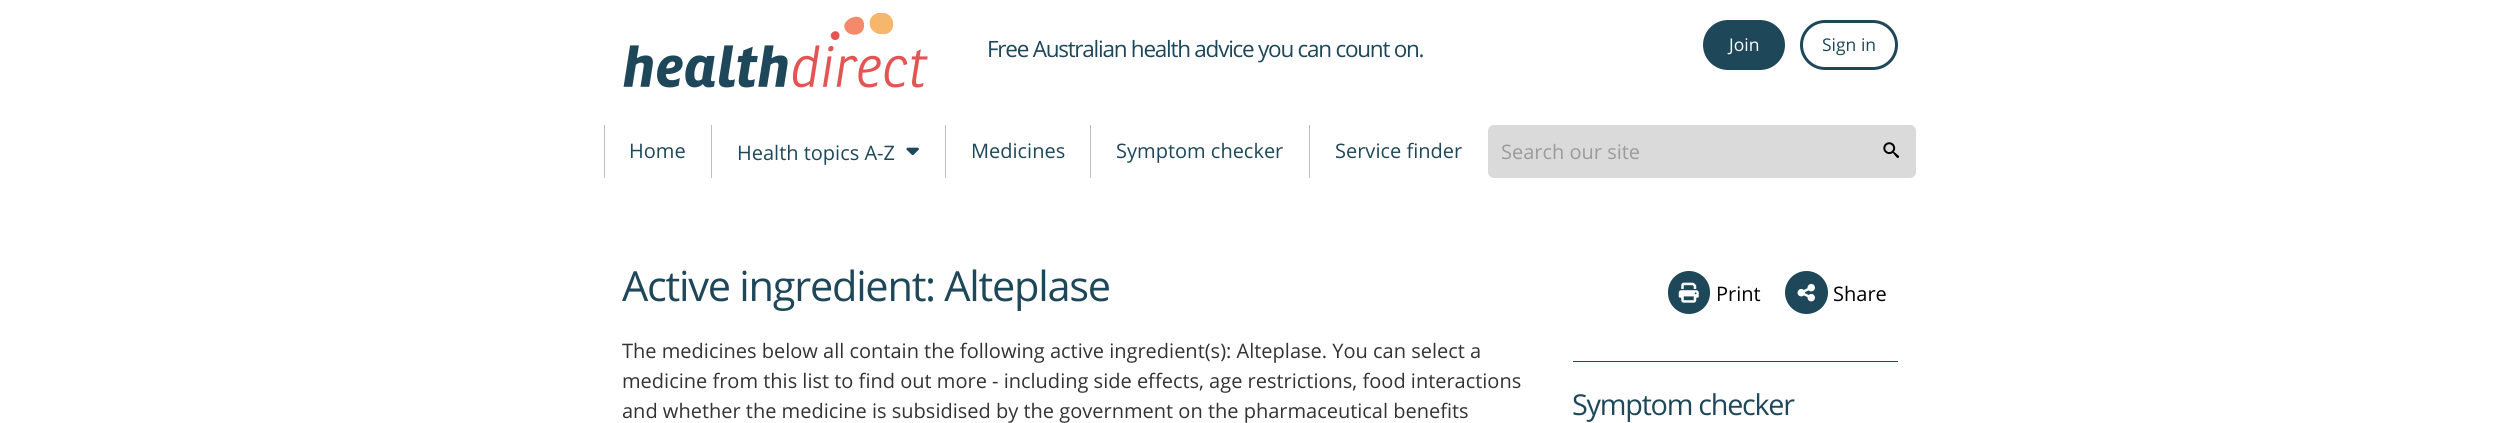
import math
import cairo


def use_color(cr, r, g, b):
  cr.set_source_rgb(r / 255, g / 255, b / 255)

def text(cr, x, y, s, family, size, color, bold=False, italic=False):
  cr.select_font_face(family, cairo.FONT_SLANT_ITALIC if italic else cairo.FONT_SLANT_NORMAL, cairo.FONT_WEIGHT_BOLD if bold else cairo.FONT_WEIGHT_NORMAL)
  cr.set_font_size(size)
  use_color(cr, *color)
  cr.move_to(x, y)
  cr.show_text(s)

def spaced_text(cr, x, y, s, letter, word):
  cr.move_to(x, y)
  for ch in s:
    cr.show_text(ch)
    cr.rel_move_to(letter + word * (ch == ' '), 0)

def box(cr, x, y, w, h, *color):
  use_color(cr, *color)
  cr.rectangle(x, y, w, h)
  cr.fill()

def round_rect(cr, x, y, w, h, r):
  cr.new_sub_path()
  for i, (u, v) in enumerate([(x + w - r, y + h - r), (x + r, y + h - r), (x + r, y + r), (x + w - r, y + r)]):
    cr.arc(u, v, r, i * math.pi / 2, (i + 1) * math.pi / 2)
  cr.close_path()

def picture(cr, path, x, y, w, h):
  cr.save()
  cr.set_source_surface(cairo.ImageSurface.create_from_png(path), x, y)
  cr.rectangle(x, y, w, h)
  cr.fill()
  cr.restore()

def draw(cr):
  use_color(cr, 255, 255, 255)
  cr.paint()
  picture(cr, "img_01.png", 623, 13, 305, 75)
  use_color(cr, 30, 71, 89)
  round_rect(cr, 1703, 20, 82, 50, 25)
  cr.fill()
  round_rect(cr, 1801.5, 21.5, 95, 47, 23.5)
  cr.set_line_width(3)
  cr.stroke()
  box(cr, 604, 125, 1, 53, 191, 191, 191)
  box(cr, 711, 125, 1, 53, 191, 191, 191)
  picture(cr, "img_02.png", 906, 147, 13, 9)
  box(cr, 945, 125, 1, 53, 191, 191, 191)
  box(cr, 1090, 125, 1, 53, 191, 191, 191)
  box(cr, 1309, 125, 1, 53, 191, 191, 191)
  use_color(cr, 218, 218, 218)
  round_rect(cr, 1488, 125, 428, 53, 6)
  cr.fill()
  picture(cr, "img_03.png", 1883, 142, 17, 16)
  use_color(cr, 30, 71, 89)
  round_rect(cr, 1668, 271, 42, 43, 21)
  cr.fill()
  picture(cr, "img_04.png", 1678, 282, 21, 21)
  cr.arc(1806.5, 292.5, 21.5, 0, 2 * math.pi)
  cr.fill()
  picture(cr, "img_05.png", 1797, 283, 18, 19)
  box(cr, 1573, 361, 325, 1, 30, 71, 89)
  cr.select_font_face("Open Sans")
  cr.set_font_size(22.5)
  spaced_text(cr, 987, 57, "Free Australian health advice you can count on.", -1.25, 0)
  text(cr, 1729, 51, "Join", "Open Sans", 17.5, (255, 255, 255))
  text(cr, 1822, 51, "Sign in", "Open Sans", 17.5, (30, 71, 89))
  text(cr, 629, 158, "Home", "Open Sans", 20, (30, 71, 89))
  text(cr, 737, 160, "Health topics A-Z", "Open Sans", 20, (30, 71, 89))
  text(cr, 971, 158, "Medicines", "Open Sans", 20, (30, 71, 89))
  text(cr, 1116, 158, "Symptom checker", "Open Sans", 20, (30, 71, 89))
  text(cr, 1335, 158, "Service finder", "Open Sans", 20, (30, 71, 89))
  text(cr, 1501, 159, "Search our site", "Open Sans", 20, (155, 155, 155))
  cr.set_font_size(41.5)
  use_color(cr, 30, 71, 89)
  spaced_text(cr, 622, 301, "Active ingredient: Alteplase", -1.25, 0)
  text(cr, 622, 358, "The medicines below all contain the following active ingredient(s): Alteplase. You can select a", "Open Sans", 20, (51, 51, 51))
  text(cr, 622, 388, "medicine from this list to find out more - including side effects, age restrictions, food interactions", "Open Sans", 20, (51, 51, 51))
  text(cr, 622, 418, "and whether the medicine is subsidised by the government on the pharmaceutical benefits", "Open Sans", 20, (51, 51, 51))
  text(cr, 1716, 301, "Print", "Open Sans", 20, (0, 0, 0))
  text(cr, 1833, 301, "Share", "Open Sans", 20, (0, 0, 0))
  cr.set_font_size(28.75)
  use_color(cr, 30, 71, 89)
  spaced_text(cr, 1572, 415, "Symptom checker", -1.25, 0)


surface = cairo.ImageSurface(cairo.FORMAT_RGB24, 2518, 423)
cr = cairo.Context(surface)
options = cairo.FontOptions()
options.set_hint_metrics(cairo.HINT_METRICS_OFF)
options.set_hint_style(cairo.HINT_STYLE_NONE)
cr.set_font_options(options)
cr.set_miter_limit(4)
draw(cr)
surface.write_to_png("out.png")
